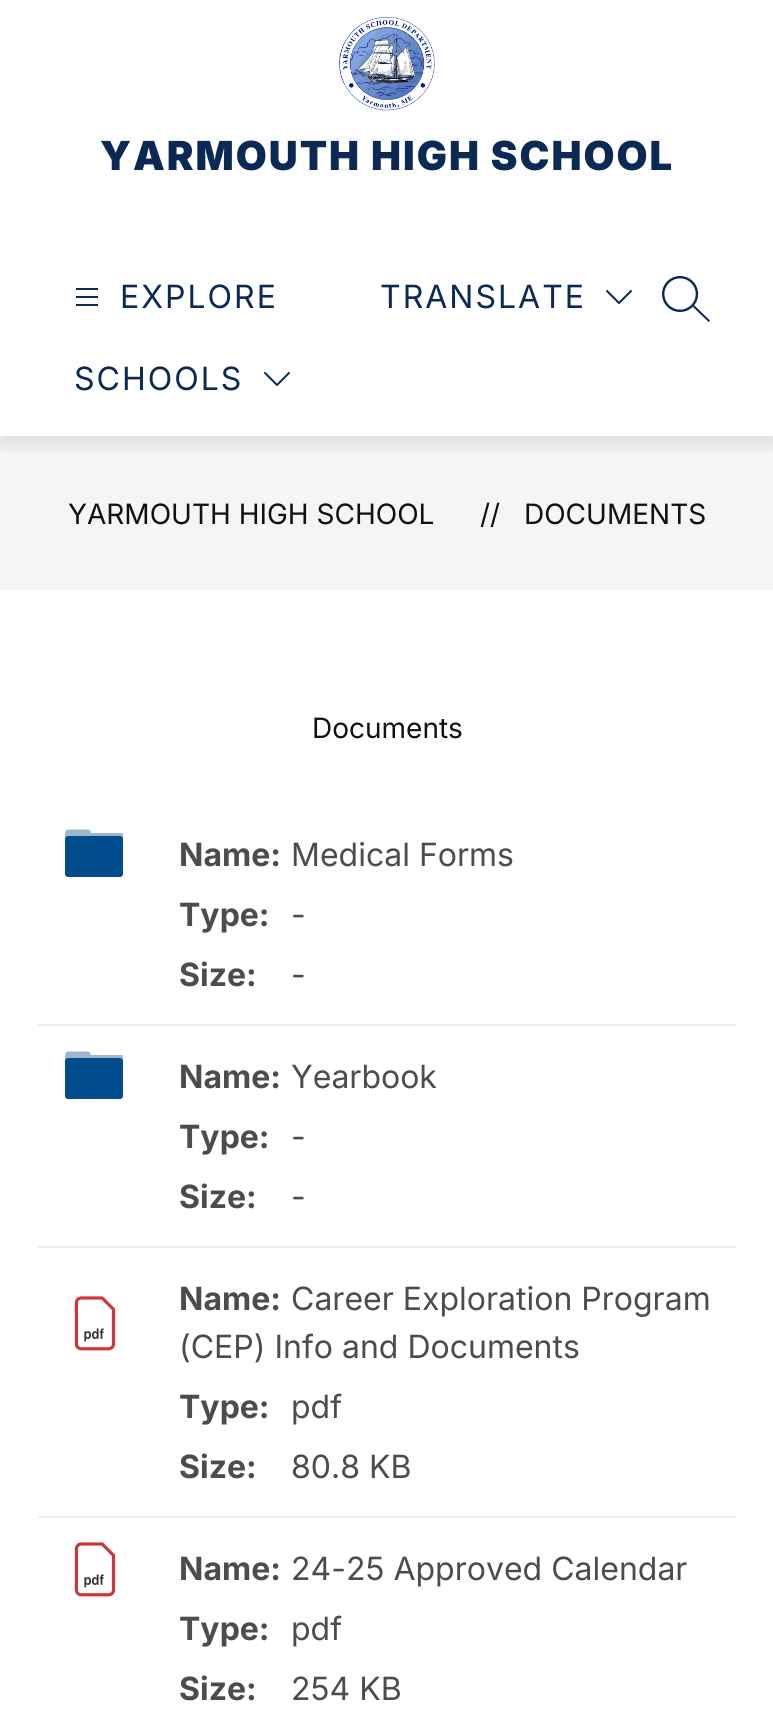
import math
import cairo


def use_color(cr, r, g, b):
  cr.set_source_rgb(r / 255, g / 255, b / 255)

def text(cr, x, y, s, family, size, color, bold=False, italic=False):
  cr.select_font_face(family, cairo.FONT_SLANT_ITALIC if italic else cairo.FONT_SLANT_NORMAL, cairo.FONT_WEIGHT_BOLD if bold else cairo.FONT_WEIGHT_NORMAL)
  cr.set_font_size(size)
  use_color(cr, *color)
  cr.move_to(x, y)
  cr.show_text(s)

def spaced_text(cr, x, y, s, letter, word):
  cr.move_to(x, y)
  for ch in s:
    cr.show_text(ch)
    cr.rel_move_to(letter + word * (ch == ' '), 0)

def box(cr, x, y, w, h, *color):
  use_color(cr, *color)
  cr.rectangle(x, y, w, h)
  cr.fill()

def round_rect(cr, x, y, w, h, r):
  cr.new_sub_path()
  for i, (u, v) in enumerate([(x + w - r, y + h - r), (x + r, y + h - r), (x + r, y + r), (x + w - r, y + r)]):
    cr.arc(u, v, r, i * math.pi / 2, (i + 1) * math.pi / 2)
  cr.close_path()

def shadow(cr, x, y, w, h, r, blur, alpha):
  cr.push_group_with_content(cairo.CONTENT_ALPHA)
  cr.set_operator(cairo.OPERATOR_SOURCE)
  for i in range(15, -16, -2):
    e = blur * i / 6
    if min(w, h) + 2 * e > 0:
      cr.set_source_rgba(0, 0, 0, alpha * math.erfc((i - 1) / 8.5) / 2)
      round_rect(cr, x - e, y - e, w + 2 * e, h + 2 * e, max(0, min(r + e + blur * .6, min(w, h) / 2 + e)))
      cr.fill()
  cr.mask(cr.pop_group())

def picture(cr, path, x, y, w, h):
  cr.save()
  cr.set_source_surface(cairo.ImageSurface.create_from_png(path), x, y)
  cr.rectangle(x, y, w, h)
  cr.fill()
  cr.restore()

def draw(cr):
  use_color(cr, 255, 255, 255)
  cr.paint()
  box(cr, 0, 436, 773, 154, 245, 245, 245)
  cr.save()
  cr.rectangle(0, 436, 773, 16)
  cr.clip()
  use_color(cr, 0, 0, 0)
  shadow(cr, 0, 8, 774, 436, 0, 10, 0.1)
  cr.restore()
  picture(cr, "img_01.png", 339, 16, 96, 95)
  picture(cr, "img_02.png", 76, 288, 22, 18)
  picture(cr, "img_03.png", 264, 372, 26, 14)
  picture(cr, "img_03.png", 606, 290, 26, 14)
  picture(cr, "img_04.png", 662, 276, 48, 46)
  box(cr, 38, 1024, 698, 2, 240, 240, 240)
  use_color(cr, 158, 183, 206)
  round_rect(cr, 65, 833, 58, 7, 1.5)
  cr.fill()
  cr.new_path()
  cr.move_to(68.5, 829.5)
  cr.line_to(87.5, 829.5)
  cr.curve_to(89.5, 829.5, 91, 831, 91, 832.5)
  cr.line_to(91, 836)
  cr.line_to(65, 836)
  cr.curve_to(65, 833.5, 65, 829.5, 68.5, 829.5)
  cr.close_path()
  cr.fill()
  use_color(cr, 0, 76, 141)
  round_rect(cr, 65, 836, 58, 41, 3)
  cr.fill()
  box(cr, 38, 1246, 698, 2, 240, 240, 240)
  use_color(cr, 158, 183, 206)
  round_rect(cr, 65, 1055, 58, 7, 1.5)
  cr.fill()
  cr.new_path()
  cr.move_to(68.5, 1051.5)
  cr.line_to(81, 1051.5)
  cr.curve_to(89, 1051.5, 91, 1050, 91, 1058)
  cr.line_to(65, 1058)
  cr.curve_to(65, 1055.5, 65, 1051.5, 68.5, 1051.5)
  cr.close_path()
  cr.fill()
  use_color(cr, 0, 76, 141)
  round_rect(cr, 65, 1058, 58, 41, 3)
  cr.fill()
  box(cr, 38, 1516, 698, 2, 240, 240, 240)
  picture(cr, "img_05.png", 74, 1296, 42, 55)
  picture(cr, "img_05.png", 74, 1542, 42, 55)
  cr.select_font_face("Inter Black")
  cr.set_font_size(40)
  use_color(cr, 10, 41, 85)
  spaced_text(cr, 100, 170, "YARMOUTH HIGH SCHOOL", 2, 0)
  cr.select_font_face("Inter")
  cr.set_font_size(32)
  spaced_text(cr, 120, 308, "EXPLORE", 2, 0)
  spaced_text(cr, 74, 390, "SCHOOLS", 2, 0)
  spaced_text(cr, 380, 308, "TRANSLATE", 2, 0)
  text(cr, 68, 524, "YARMOUTH HIGH SCHOOL", "Inter", 28, (17, 17, 17))
  text(cr, 480, 524, "//", "Inter", 28, (17, 17, 17))
  text(cr, 524, 524, "DOCUMENTS", "Inter", 28, (17, 17, 17))
  text(cr, 312, 738, "Documents", "Inter", 28, (17, 17, 17))
  text(cr, 179, 866, "Name:", "Inter", 32, (76, 76, 76), bold=True)
  text(cr, 291, 866, "Medical Forms", "Inter", 32, (76, 76, 76))
  text(cr, 179, 926, "Type:", "Inter", 32, (76, 76, 76), bold=True)
  text(cr, 291, 926, "-", "Inter", 32, (76, 76, 76))
  text(cr, 179, 986, "Size:", "Inter", 32, (76, 76, 76), bold=True)
  text(cr, 291, 986, "-", "Inter", 32, (76, 76, 76))
  text(cr, 179, 1088, "Name:", "Inter", 32, (76, 76, 76), bold=True)
  text(cr, 291, 1088, "Yearbook", "Inter", 32, (76, 76, 76))
  text(cr, 179, 1148, "Type:", "Inter", 32, (76, 76, 76), bold=True)
  text(cr, 291, 1148, "-", "Inter", 32, (76, 76, 76))
  text(cr, 179, 1208, "Size:", "Inter", 32, (76, 76, 76), bold=True)
  text(cr, 291, 1208, "-", "Inter", 32, (76, 76, 76))
  text(cr, 179, 1310, "Name:", "Inter", 32, (76, 76, 76), bold=True)
  text(cr, 291, 1310, "Career Exploration Program", "Inter", 32, (76, 76, 76))
  text(cr, 179, 1358, "(CEP) Info and Documents", "Inter", 32, (76, 76, 76))
  text(cr, 179, 1418, "Type:", "Inter", 32, (76, 76, 76), bold=True)
  text(cr, 291, 1418, "pdf", "Inter", 32, (76, 76, 76))
  text(cr, 179, 1478, "Size:", "Inter", 32, (76, 76, 76), bold=True)
  text(cr, 291, 1478, "80.8 KB", "Inter", 32, (76, 76, 76))
  text(cr, 179, 1580, "Name:", "Inter", 32, (76, 76, 76), bold=True)
  text(cr, 291, 1580, "24-25 Approved Calendar", "Inter", 32, (76, 76, 76))
  text(cr, 179, 1640, "Type:", "Inter", 32, (76, 76, 76), bold=True)
  text(cr, 291, 1640, "pdf", "Inter", 32, (76, 76, 76))
  text(cr, 179, 1700, "Size:", "Inter", 32, (76, 76, 76), bold=True)
  text(cr, 291, 1700, "254 KB", "Inter", 32, (76, 76, 76))


surface = cairo.ImageSurface(cairo.FORMAT_RGB24, 773, 1711)
cr = cairo.Context(surface)
options = cairo.FontOptions()
options.set_hint_metrics(cairo.HINT_METRICS_OFF)
options.set_hint_style(cairo.HINT_STYLE_NONE)
cr.set_font_options(options)
cr.set_miter_limit(4)
draw(cr)
surface.write_to_png("out.png")
